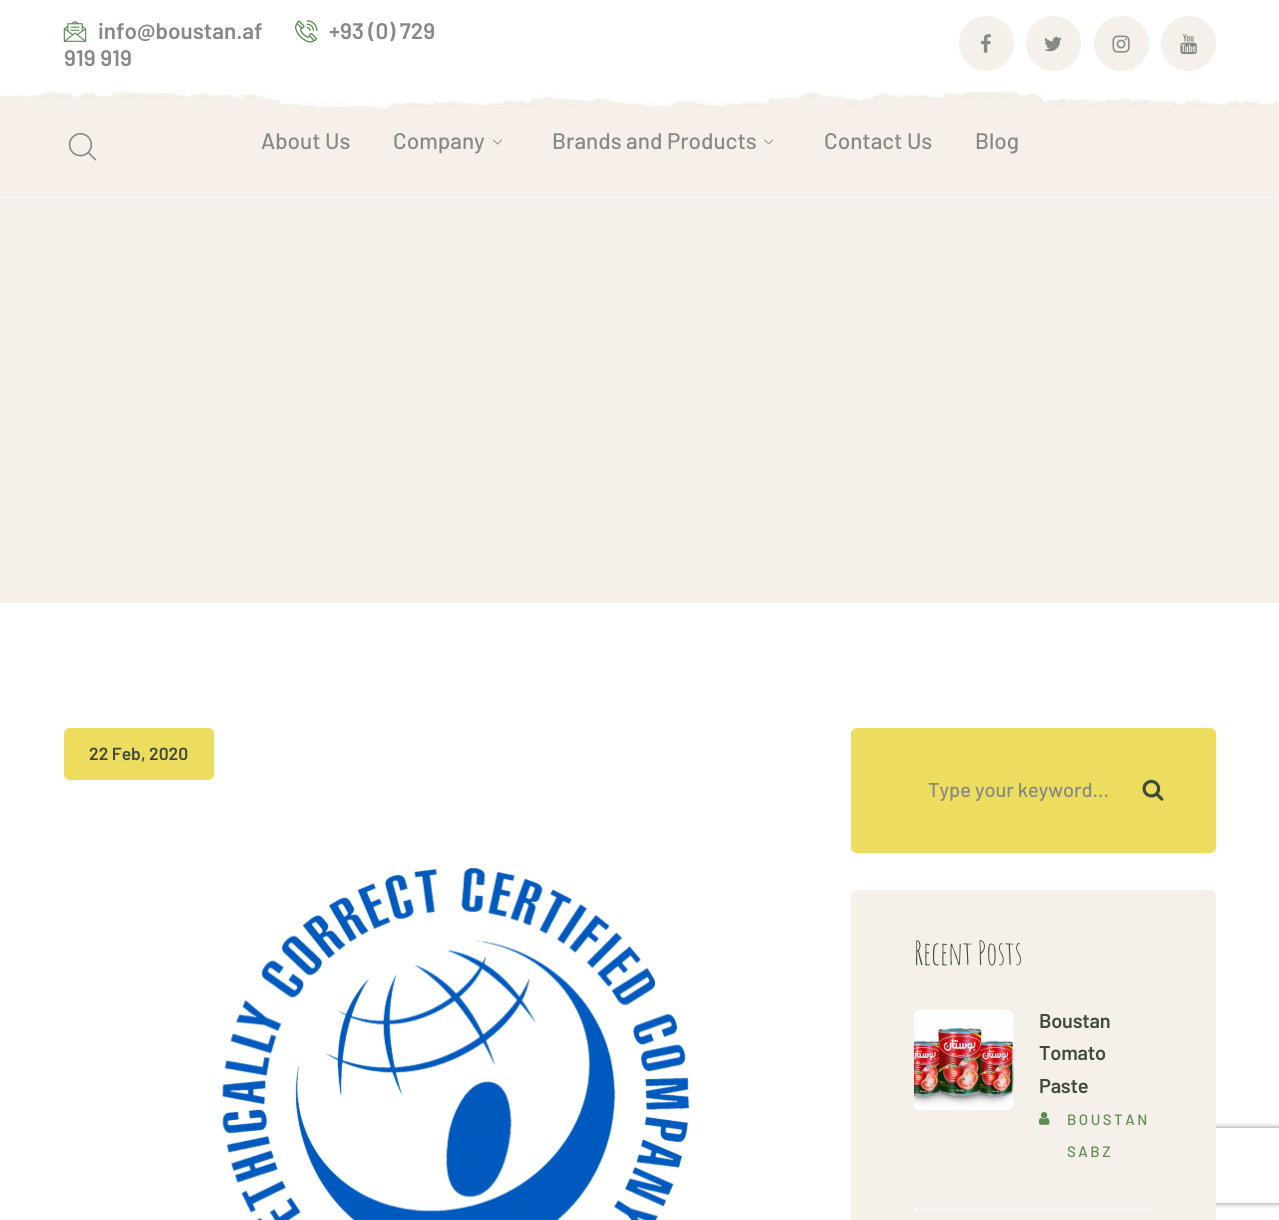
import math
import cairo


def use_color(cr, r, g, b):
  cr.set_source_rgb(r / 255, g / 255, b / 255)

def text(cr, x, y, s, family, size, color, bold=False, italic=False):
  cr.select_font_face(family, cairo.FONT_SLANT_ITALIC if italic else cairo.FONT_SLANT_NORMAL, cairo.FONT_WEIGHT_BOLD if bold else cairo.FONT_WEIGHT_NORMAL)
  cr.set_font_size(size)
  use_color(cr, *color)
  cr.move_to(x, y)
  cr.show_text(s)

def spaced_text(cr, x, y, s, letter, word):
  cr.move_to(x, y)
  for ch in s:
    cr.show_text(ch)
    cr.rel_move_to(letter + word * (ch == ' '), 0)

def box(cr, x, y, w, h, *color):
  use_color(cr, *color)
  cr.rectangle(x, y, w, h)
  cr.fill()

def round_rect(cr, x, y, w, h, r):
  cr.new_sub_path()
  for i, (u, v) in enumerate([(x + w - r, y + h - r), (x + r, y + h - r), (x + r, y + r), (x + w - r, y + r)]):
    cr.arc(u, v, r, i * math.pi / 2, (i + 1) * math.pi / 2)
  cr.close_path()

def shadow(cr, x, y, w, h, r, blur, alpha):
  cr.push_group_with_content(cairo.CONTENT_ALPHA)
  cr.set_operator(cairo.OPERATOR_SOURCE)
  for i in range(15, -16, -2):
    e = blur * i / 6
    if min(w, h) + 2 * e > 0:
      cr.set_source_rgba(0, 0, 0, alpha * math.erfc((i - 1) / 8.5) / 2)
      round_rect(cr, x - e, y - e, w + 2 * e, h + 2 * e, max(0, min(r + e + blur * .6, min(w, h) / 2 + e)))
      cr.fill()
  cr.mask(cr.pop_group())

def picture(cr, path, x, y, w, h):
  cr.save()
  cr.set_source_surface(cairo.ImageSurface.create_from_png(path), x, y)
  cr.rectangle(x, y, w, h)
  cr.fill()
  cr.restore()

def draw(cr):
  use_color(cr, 255, 255, 255)
  cr.paint()
  picture(cr, "img_01.png", 295, 20, 23, 23)
  picture(cr, "img_02.png", 63, 21, 24, 21)
  use_color(cr, 245, 240, 233)
  cr.arc(986.5, 43.5, 27.5, 0, 2 * math.pi)
  cr.fill()
  picture(cr, "img_03.png", 981, 34, 10, 19)
  cr.arc(1053.5, 43.5, 27.5, 0, 2 * math.pi)
  cr.fill()
  picture(cr, "img_04.png", 1044, 37, 18, 15)
  cr.arc(1121.5, 43.5, 27.5, 0, 2 * math.pi)
  cr.fill()
  picture(cr, "img_05.png", 1112, 35, 18, 18)
  cr.arc(1188.5, 43.5, 27.5, 0, 2 * math.pi)
  cr.fill()
  picture(cr, "img_06.png", 1180, 34, 17, 21)
  picture(cr, "img_07.png", 0, 89, 1279, 104)
  picture(cr, "img_08.png", 68, 133, 29, 28)
  picture(cr, "img_09.png", 493, 139, 9, 6)
  picture(cr, "img_10.png", 764, 139, 10, 6)
  box(cr, 0, 193, 1279, 410, 245, 240, 233)
  use_color(cr, 237, 221, 94)
  round_rect(cr, 64, 728, 150, 52, 6)
  cr.fill()
  picture(cr, "img_11.png", 222, 868, 468, 352)
  round_rect(cr, 851, 728, 365, 125, 6)
  cr.fill()
  picture(cr, "img_12.png", 1142, 779, 22, 22)
  cr.save()
  cr.set_fill_rule(cairo.FILL_RULE_EVEN_ODD)
  cr.new_path()
  cr.move_to(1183, 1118)
  cr.line_to(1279, 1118)
  cr.line_to(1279, 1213)
  cr.line_to(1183, 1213)
  cr.close_path()
  cr.move_to(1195.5, 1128)
  cr.line_to(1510.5, 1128)
  cr.curve_to(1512, 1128, 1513, 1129, 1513, 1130.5)
  cr.line_to(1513, 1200.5)
  cr.curve_to(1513, 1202, 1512, 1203, 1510.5, 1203)
  cr.line_to(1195.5, 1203)
  cr.curve_to(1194, 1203, 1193, 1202, 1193, 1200.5)
  cr.line_to(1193, 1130.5)
  cr.curve_to(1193, 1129, 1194, 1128, 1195.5, 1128)
  cr.close_path()
  cr.clip()
  use_color(cr, 128, 128, 128)
  shadow(cr, 1193, 1128, 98, 75, 2.5, 3, 1)
  cr.restore()
  use_color(cr, 245, 240, 233)
  round_rect(cr, 851, 890, 365, 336, 6)
  cr.fill()
  box(cr, 914, 1209, 240, 1, 255, 255, 255)
  picture(cr, "img_13.png", 913, 1010, 101, 100)
  picture(cr, "img_14.png", 1039, 1112, 11, 13)
  text(cr, 329, 39, "+93 (0) 729", "Barlow SemiBold", 22.5, (135, 137, 134))
  text(cr, 64, 66, "919 919", "Barlow SemiBold", 22.5, (135, 137, 134))
  text(cr, 98, 39, "info@boustan.af", "Barlow SemiBold", 22.5, (135, 137, 134))
  text(cr, 261, 149, "About Us", "Barlow Medium", 22.5, (135, 137, 134))
  text(cr, 393, 149, "Company", "Barlow Medium", 22.5, (135, 137, 134))
  text(cr, 552, 149, "Brands and Products", "Barlow Medium", 22.5, (135, 137, 134))
  text(cr, 824, 149, "Contact Us", "Barlow Medium", 22.5, (135, 137, 134))
  text(cr, 975, 149, "Blog", "Barlow Medium", 22.5, (135, 137, 134))
  text(cr, 89, 760, "22 Feb, 2020", "Barlow SemiBold", 17.5, (64, 74, 61))
  text(cr, 928, 797, "Type your keyword...", "Barlow Medium", 20, (135, 137, 134))
  cr.select_font_face("Amatic SC")
  cr.set_font_size(32.5)
  use_color(cr, 64, 74, 61)
  spaced_text(cr, 914, 965, "Recent Posts", -0.25, 0)
  cr.select_font_face("Barlow SemiBold")
  cr.set_font_size(20)
  spaced_text(cr, 1039, 1028, "Boustan", -0.25, 0)
  spaced_text(cr, 1039, 1060, "Tomato", -0.25, 0)
  spaced_text(cr, 1039, 1093, "Paste", -0.25, 0)
  cr.select_font_face("Barlow Medium")
  cr.set_font_size(15)
  use_color(cr, 91, 140, 81)
  spaced_text(cr, 1067, 1125, "BOUSTAN", 2.5, 0)
  spaced_text(cr, 1067, 1157, "SABZ", 2.5, 0)


surface = cairo.ImageSurface(cairo.FORMAT_RGB24, 1279, 1220)
cr = cairo.Context(surface)
options = cairo.FontOptions()
options.set_hint_metrics(cairo.HINT_METRICS_OFF)
options.set_hint_style(cairo.HINT_STYLE_NONE)
cr.set_font_options(options)
cr.set_miter_limit(4)
draw(cr)
surface.write_to_png("out.png")
